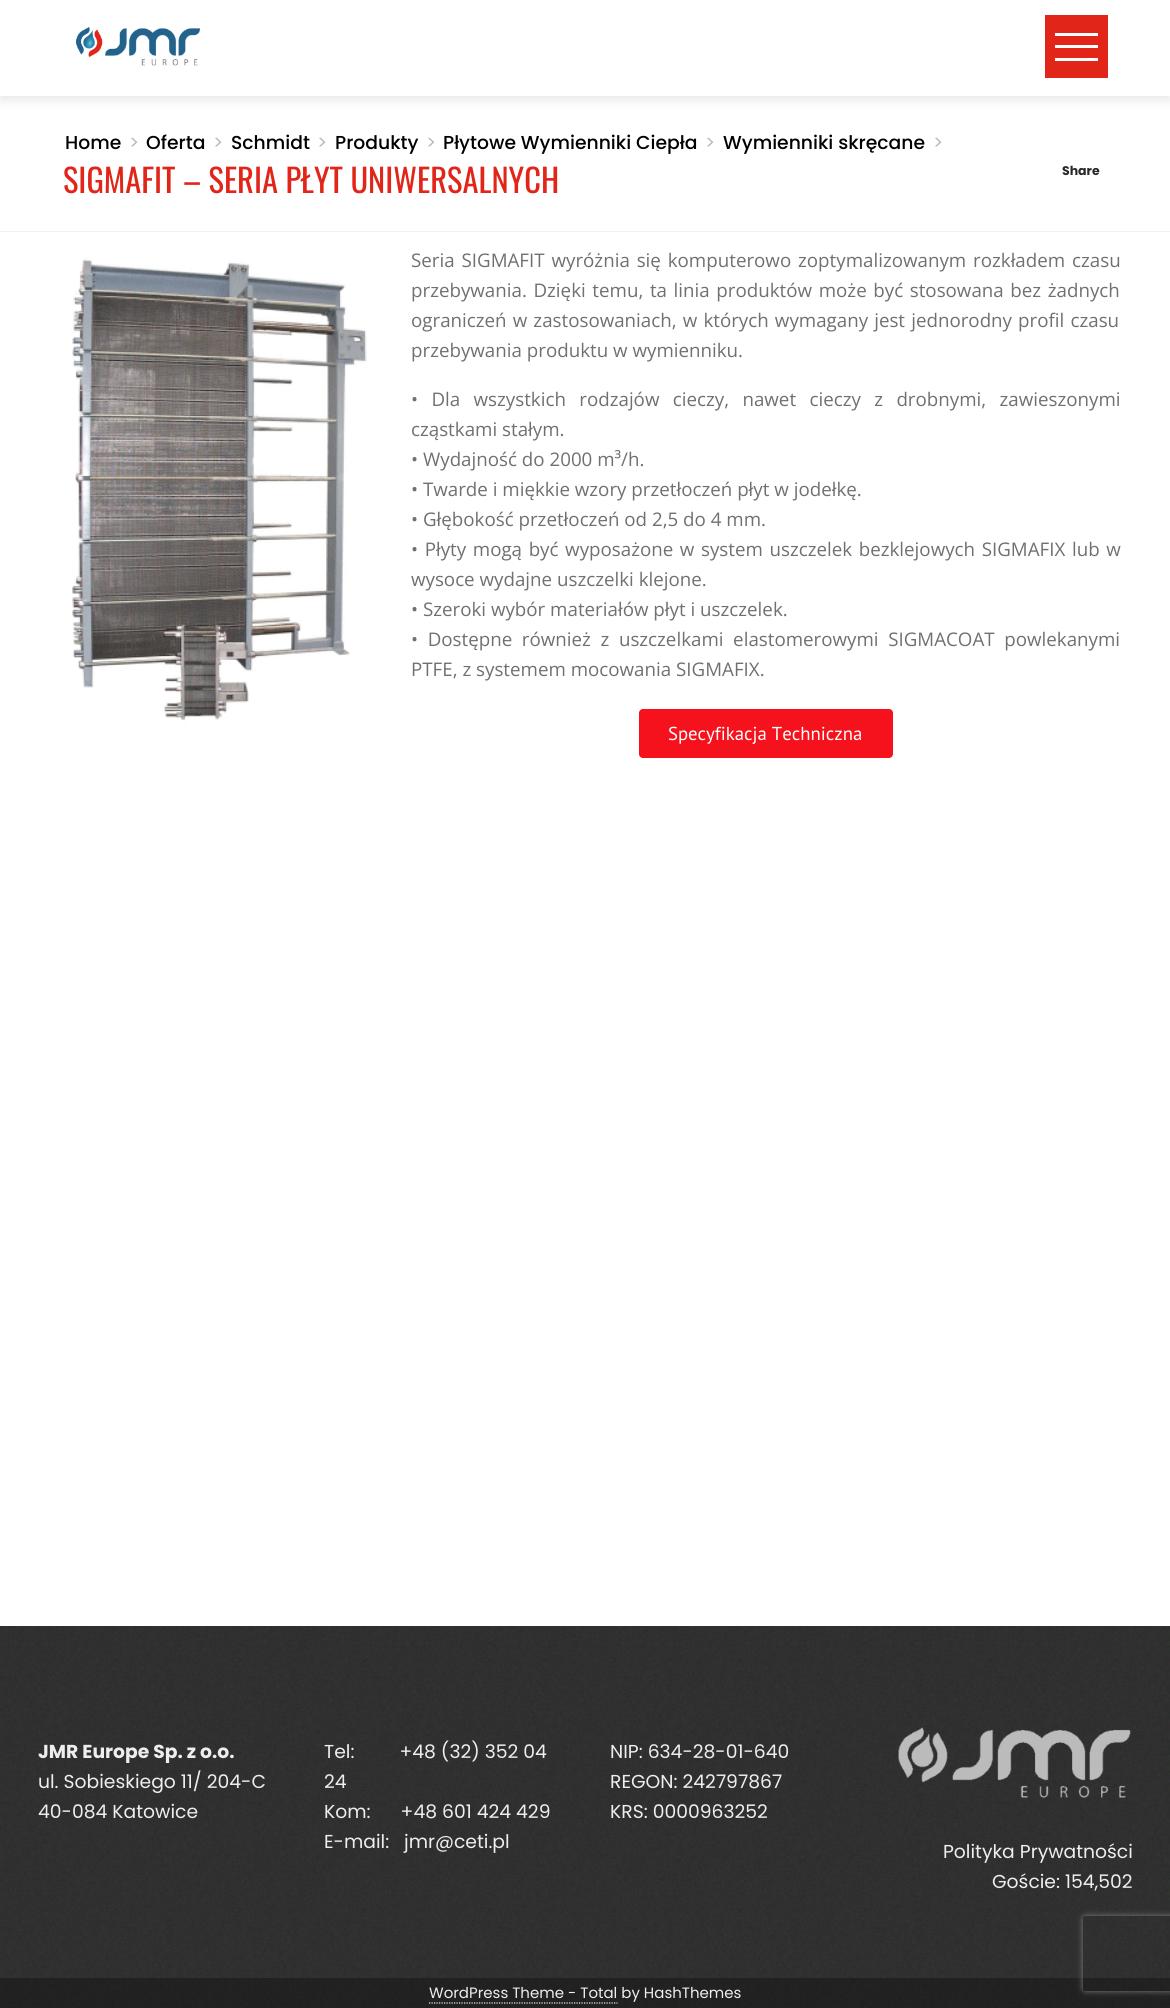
import math
import cairo


def use_color(cr, r, g, b):
  cr.set_source_rgb(r / 255, g / 255, b / 255)

def text(cr, x, y, s, family, size, color, bold=False, italic=False):
  cr.select_font_face(family, cairo.FONT_SLANT_ITALIC if italic else cairo.FONT_SLANT_NORMAL, cairo.FONT_WEIGHT_BOLD if bold else cairo.FONT_WEIGHT_NORMAL)
  cr.set_font_size(size)
  use_color(cr, *color)
  cr.move_to(x, y)
  cr.show_text(s)

def spaced_text(cr, x, y, s, letter, word):
  cr.move_to(x, y)
  for ch in s:
    cr.show_text(ch)
    cr.rel_move_to(letter + word * (ch == ' '), 0)

def box(cr, x, y, w, h, *color):
  use_color(cr, *color)
  cr.rectangle(x, y, w, h)
  cr.fill()

def round_rect(cr, x, y, w, h, r):
  cr.new_sub_path()
  for i, (u, v) in enumerate([(x + w - r, y + h - r), (x + r, y + h - r), (x + r, y + r), (x + w - r, y + r)]):
    cr.arc(u, v, r, i * math.pi / 2, (i + 1) * math.pi / 2)
  cr.close_path()

def shadow(cr, x, y, w, h, r, blur, alpha):
  cr.push_group_with_content(cairo.CONTENT_ALPHA)
  cr.set_operator(cairo.OPERATOR_SOURCE)
  for i in range(15, -16, -2):
    e = blur * i / 6
    if min(w, h) + 2 * e > 0:
      cr.set_source_rgba(0, 0, 0, alpha * math.erfc((i - 1) / 8.5) / 2)
      round_rect(cr, x - e, y - e, w + 2 * e, h + 2 * e, max(0, min(r + e + blur * .6, min(w, h) / 2 + e)))
      cr.fill()
  cr.mask(cr.pop_group())

def picture(cr, path, x, y, w, h):
  cr.save()
  cr.set_source_surface(cairo.ImageSurface.create_from_png(path), x, y)
  cr.rectangle(x, y, w, h)
  cr.fill()
  cr.restore()

def draw(cr):
  use_color(cr, 255, 255, 255)
  cr.paint()
  use_color(cr, 0, 0, 0)
  shadow(cr, 0, -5, 1170, 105, 0, 6, 0.1)
  box(cr, 0, 0, 1170, 96, 255, 255, 255)
  picture(cr, "img_01.png", 75, 26, 125, 40)
  box(cr, 1045, 15, 63, 63, 225, 37, 25)
  box(cr, 1055, 33, 43, 3, 255, 255, 255)
  box(cr, 1055, 58, 43, 3, 255, 255, 255)
  box(cr, 1055, 45, 43, 3, 255, 255, 255)
  box(cr, 0, 231, 1170, 1, 241, 241, 241)
  picture(cr, "img_02.png", 71, 255, 297, 470)
  use_color(cr, 246, 18, 28)
  round_rect(cr, 639, 709, 254, 49, 4)
  cr.fill()
  picture(cr, "img_03.png", 0, 1626, 1170, 382)
  picture(cr, "img_04.png", 898, 1727, 233, 71)
  cr.set_source_rgba(0, 0, 0, 0.3)
  cr.rectangle(0, 1978, 1170, 30)
  cr.fill()
  cr.new_path()
  cr.move_to(429, 2003)
  cr.line_to(617.5, 2003)
  use_color(cr, 238, 238, 238)
  cr.set_line_width(1.2)
  cr.set_dash([1.25, 1.25])
  cr.stroke()
  cr.save()
  cr.set_fill_rule(cairo.FILL_RULE_EVEN_ODD)
  cr.new_path()
  cr.move_to(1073, 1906)
  cr.line_to(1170, 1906)
  cr.line_to(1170, 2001)
  cr.line_to(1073, 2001)
  cr.close_path()
  cr.move_to(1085.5, 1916)
  cr.line_to(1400.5, 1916)
  cr.curve_to(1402, 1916, 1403, 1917, 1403, 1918.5)
  cr.line_to(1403, 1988.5)
  cr.curve_to(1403, 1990, 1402, 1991, 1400.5, 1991)
  cr.line_to(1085.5, 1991)
  cr.curve_to(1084, 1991, 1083, 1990, 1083, 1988.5)
  cr.line_to(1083, 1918.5)
  cr.curve_to(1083, 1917, 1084, 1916, 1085.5, 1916)
  cr.close_path()
  cr.clip()
  use_color(cr, 128, 128, 128)
  shadow(cr, 1083, 1916, 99, 75, 2.5, 3, 1)
  cr.restore()
  text(cr, 65, 149, "Home", "Poppins Medium", 18.75, (0, 0, 0))
  text(cr, 129, 149, ">", "Poppins", 18.75, (186, 186, 186))
  text(cr, 146, 149, "Oferta", "Poppins Medium", 18.75, (0, 0, 0))
  text(cr, 213, 149, ">", "Poppins", 18.75, (186, 186, 186))
  text(cr, 231, 149, "Schmidt", "Poppins Medium", 18.75, (0, 0, 0))
  text(cr, 317, 149, ">", "Poppins", 18.75, (186, 186, 186))
  text(cr, 335, 149, "Produkty", "Poppins Medium", 18.75, (0, 0, 0))
  text(cr, 426, 149, ">", "Poppins", 18.75, (186, 186, 186))
  text(cr, 443, 149, "Płytowe Wymienniki Ciepła", "Poppins Medium", 18.75, (0, 0, 0))
  text(cr, 705, 149, ">", "Poppins", 18.75, (186, 186, 186))
  text(cr, 723, 149, "Wymienniki skręcane", "Poppins Medium", 18.75, (0, 0, 0))
  text(cr, 933, 149, ">", "Poppins", 18.75, (186, 186, 186))
  text(cr, 63, 193, "SIGMAFIT – SERIA PŁYT UNIWERSALNYCH", "Oswald", 32.5, (225, 37, 25))
  text(cr, 1062, 175, "Share", "Poppins", 12.5, (39, 39, 39), bold=True)
  cr.select_font_face("Open Sans")
  cr.set_font_size(18.75)
  use_color(cr, 112, 112, 112)
  spaced_text(cr, 411, 267, "Seria SIGMAFIT wyróżnia się komputerowo zoptymalizowanym rozkładem czasu", 0, 2)
  spaced_text(cr, 411, 297, "przebywania. Dzięki temu, ta linia produktów może być stosowana bez żadnych", 0, 1.75)
  spaced_text(cr, 411, 327, "ograniczeń w zastosowaniach, w których wymagany jest jednorodny profil czasu", 0, 1.25)
  text(cr, 411, 357, "przebywania produktu w wymienniku.", "Open Sans", 18.75, (112, 112, 112))
  spaced_text(cr, 411, 406, "• Dla wszystkich rodzajów cieczy, nawet cieczy z drobnymi, zawieszonymi", 0, 8.5)
  text(cr, 411, 436, "cząstkami stałym.", "Open Sans", 18.75, (112, 112, 112))
  text(cr, 411, 466, "• Wydajność do 2000 m³/h.", "Open Sans", 18.75, (112, 112, 112))
  text(cr, 411, 496, "• Twarde i miękkie wzory przetłoczeń płyt w jodełkę.", "Open Sans", 18.75, (112, 112, 112))
  text(cr, 411, 526, "• Głębokość przetłoczeń od 2,5 do 4 mm.", "Open Sans", 18.75, (112, 112, 112))
  spaced_text(cr, 411, 556, "• Płyty mogą być wyposażone w system uszczelek bezklejowych SIGMAFIX lub w", 0, 1.75)
  text(cr, 411, 586, "wysoce wydajne uszczelki klejone.", "Open Sans", 18.75, (112, 112, 112))
  text(cr, 411, 616, "• Szeroki wybór materiałów płyt i uszczelek.", "Open Sans", 18.75, (112, 112, 112))
  spaced_text(cr, 411, 646, "• Dostępne również z uszczelkami elastomerowymi SIGMACOAT powlekanymi", 0, 4.75)
  text(cr, 411, 676, "PTFE, z systemem mocowania SIGMAFIX.", "Open Sans", 18.75, (112, 112, 112))
  text(cr, 668, 740, "Specyfikacja Techniczna", "PT Sans", 18.75, (255, 255, 255))
  text(cr, 38, 1758, "JMR Europe Sp. z o.o.", "Poppins", 18.75, (238, 238, 238), bold=True)
  text(cr, 38, 1788, "ul. Sobieskiego 11/ 204-C", "Poppins", 18.75, (238, 238, 238))
  text(cr, 38, 1818, "40-084 Katowice", "Poppins", 18.75, (238, 238, 238))
  text(cr, 324, 1758, "Tel:         +48 (32) 352 04", "Poppins", 18.75, (238, 238, 238))
  text(cr, 324, 1788, "24", "Poppins", 18.75, (238, 238, 238))
  text(cr, 324, 1818, "Kom:      +48 601 424 429", "Poppins", 18.75, (238, 238, 238))
  text(cr, 324, 1848, "E-mail:", "Poppins", 18.75, (238, 238, 238))
  text(cr, 404, 1848, "jmr@ceti.pl", "Poppins", 18.75, (238, 238, 238))
  text(cr, 610, 1758, "NIP: 634-28-01-640", "Poppins", 18.75, (238, 238, 238))
  text(cr, 610, 1788, "REGON: 242797867", "Poppins", 18.75, (238, 238, 238))
  text(cr, 610, 1818, "KRS: 0000963252", "Poppins", 18.75, (238, 238, 238))
  text(cr, 943, 1858, "Polityka Prywatności", "Poppins", 18.75, (238, 238, 238))
  text(cr, 992, 1888, "Goście: 154,502", "Poppins", 18.75, (238, 238, 238))
  text(cr, 429, 1998, "WordPress Theme - Total by HashThemes", "Poppins", 15, (238, 238, 238))


surface = cairo.ImageSurface(cairo.FORMAT_RGB24, 1170, 2008)
cr = cairo.Context(surface)
options = cairo.FontOptions()
options.set_hint_metrics(cairo.HINT_METRICS_OFF)
options.set_hint_style(cairo.HINT_STYLE_NONE)
cr.set_font_options(options)
cr.set_miter_limit(4)
draw(cr)
surface.write_to_png("out.png")
